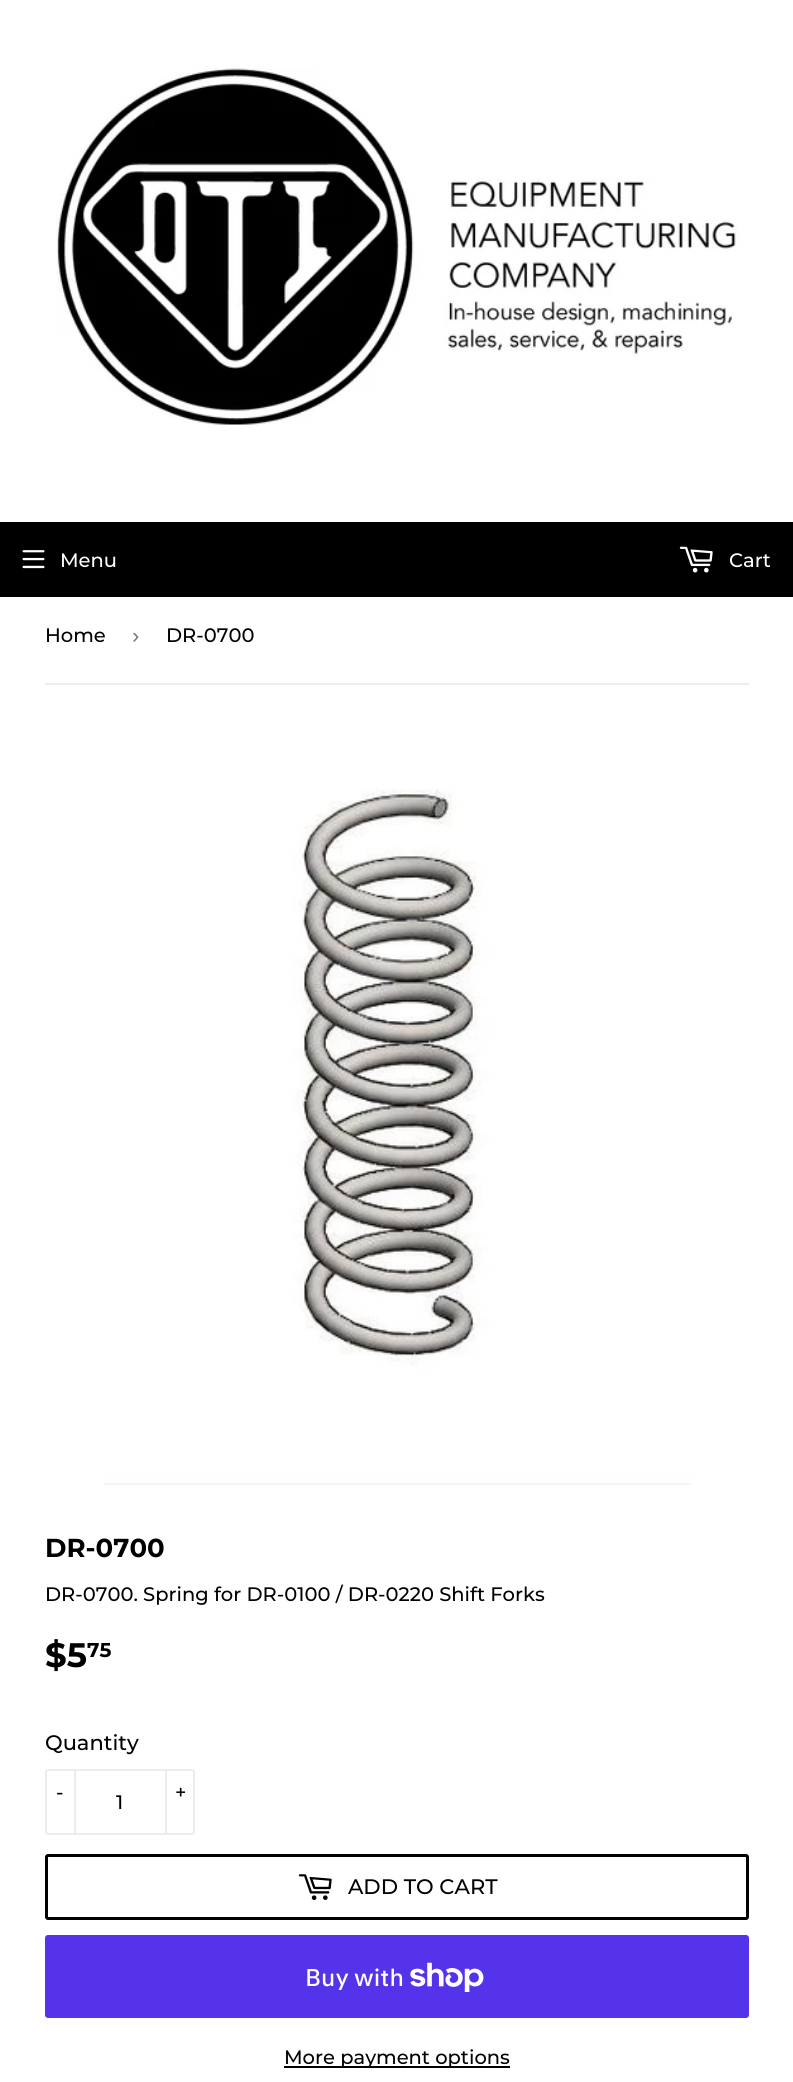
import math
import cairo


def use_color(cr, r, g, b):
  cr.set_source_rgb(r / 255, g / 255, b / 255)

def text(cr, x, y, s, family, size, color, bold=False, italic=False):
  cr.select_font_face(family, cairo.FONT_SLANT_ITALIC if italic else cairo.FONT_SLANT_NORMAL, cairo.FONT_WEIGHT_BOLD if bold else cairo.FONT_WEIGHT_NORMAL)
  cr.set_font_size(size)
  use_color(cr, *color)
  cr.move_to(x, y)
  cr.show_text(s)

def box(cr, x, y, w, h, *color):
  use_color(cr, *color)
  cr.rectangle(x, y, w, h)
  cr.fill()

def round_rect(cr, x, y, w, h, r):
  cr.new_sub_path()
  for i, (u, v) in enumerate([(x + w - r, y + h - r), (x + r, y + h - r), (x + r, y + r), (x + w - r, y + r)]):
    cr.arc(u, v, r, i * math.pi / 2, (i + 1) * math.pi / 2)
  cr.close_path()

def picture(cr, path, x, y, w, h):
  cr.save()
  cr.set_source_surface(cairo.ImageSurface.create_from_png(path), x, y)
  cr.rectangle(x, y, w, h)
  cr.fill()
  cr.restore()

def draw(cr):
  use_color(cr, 255, 255, 255)
  cr.paint()
  picture(cr, "img_01.png", 56, 68, 682, 357)
  box(cr, 0, 522, 793, 75, 0, 0, 0)
  picture(cr, "img_02.png", 22, 550, 23, 19)
  picture(cr, "img_03.png", 679, 546, 34, 27)
  box(cr, 45, 683, 704, 2, 236, 236, 236)
  picture(cr, "img_04.png", 103, 788, 589, 697)
  round_rect(cr, 46, 1770, 148, 64, 2)
  cr.stroke()
  box(cr, 74, 1769, 2, 66, 236, 236, 236)
  box(cr, 165, 1769, 2, 66, 236, 236, 236)
  round_rect(cr, 46.5, 1855.5, 701, 63, 1.5)
  use_color(cr, 0, 0, 0)
  cr.set_line_width(3)
  cr.stroke()
  picture(cr, "img_05.png", 298, 1874, 34, 26)
  use_color(cr, 84, 51, 235)
  round_rect(cr, 45, 1935, 704, 83, 3)
  cr.fill()
  picture(cr, "img_06.png", 410, 1962, 74, 30)
  box(cr, 284, 2066, 226, 2, 0, 0, 0)
  text(cr, 60, 567, "Menu", "Montserrat Medium", 19.5, (255, 255, 255))
  text(cr, 729, 567, "Cart", "Montserrat Medium", 19.5, (255, 255, 255))
  text(cr, 45, 642, "Home", "Montserrat Medium", 19.5, (0, 0, 0))
  text(cr, 132, 643, "›", "Liberation Sans", 22, (118, 118, 118))
  text(cr, 166, 642, "DR-0700", "Montserrat Medium", 19.5, (0, 0, 0))
  text(cr, 45, 1557, "DR-0700", "Montserrat", 26, (0, 0, 0), bold=True)
  text(cr, 45, 1601, "DR-0700. Spring for DR-0100 / DR-0220 Shift Forks", "Montserrat Medium", 19.5, (0, 0, 0))
  text(cr, 45, 1667, "$5", "Montserrat", 34, (0, 0, 0), bold=True)
  text(cr, 87, 1657, "75", "Montserrat", 20, (0, 0, 0), bold=True)
  text(cr, 45, 1750, "Quantity", "Montserrat Medium", 21, (0, 0, 0))
  text(cr, 56, 1799, "-", "Montserrat Medium", 19.5, (0, 0, 0))
  text(cr, 175, 1799, "+", "Montserrat Medium", 19.5, (0, 0, 0))
  text(cr, 116, 1809, "1", "Montserrat Medium", 19.5, (0, 0, 0))
  text(cr, 348, 1894, "ADD TO CART", "Montserrat Medium", 21, (0, 0, 0))
  text(cr, 305, 1986, "Buy with", "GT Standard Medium", 24, (255, 255, 255))
  text(cr, 284, 2064, "More payment options", "Montserrat Medium", 19.5, (0, 0, 0))


surface = cairo.ImageSurface(cairo.FORMAT_RGB24, 793, 2082)
cr = cairo.Context(surface)
options = cairo.FontOptions()
options.set_hint_metrics(cairo.HINT_METRICS_OFF)
options.set_hint_style(cairo.HINT_STYLE_NONE)
cr.set_font_options(options)
cr.set_miter_limit(4)
draw(cr)
surface.write_to_png("out.png")
